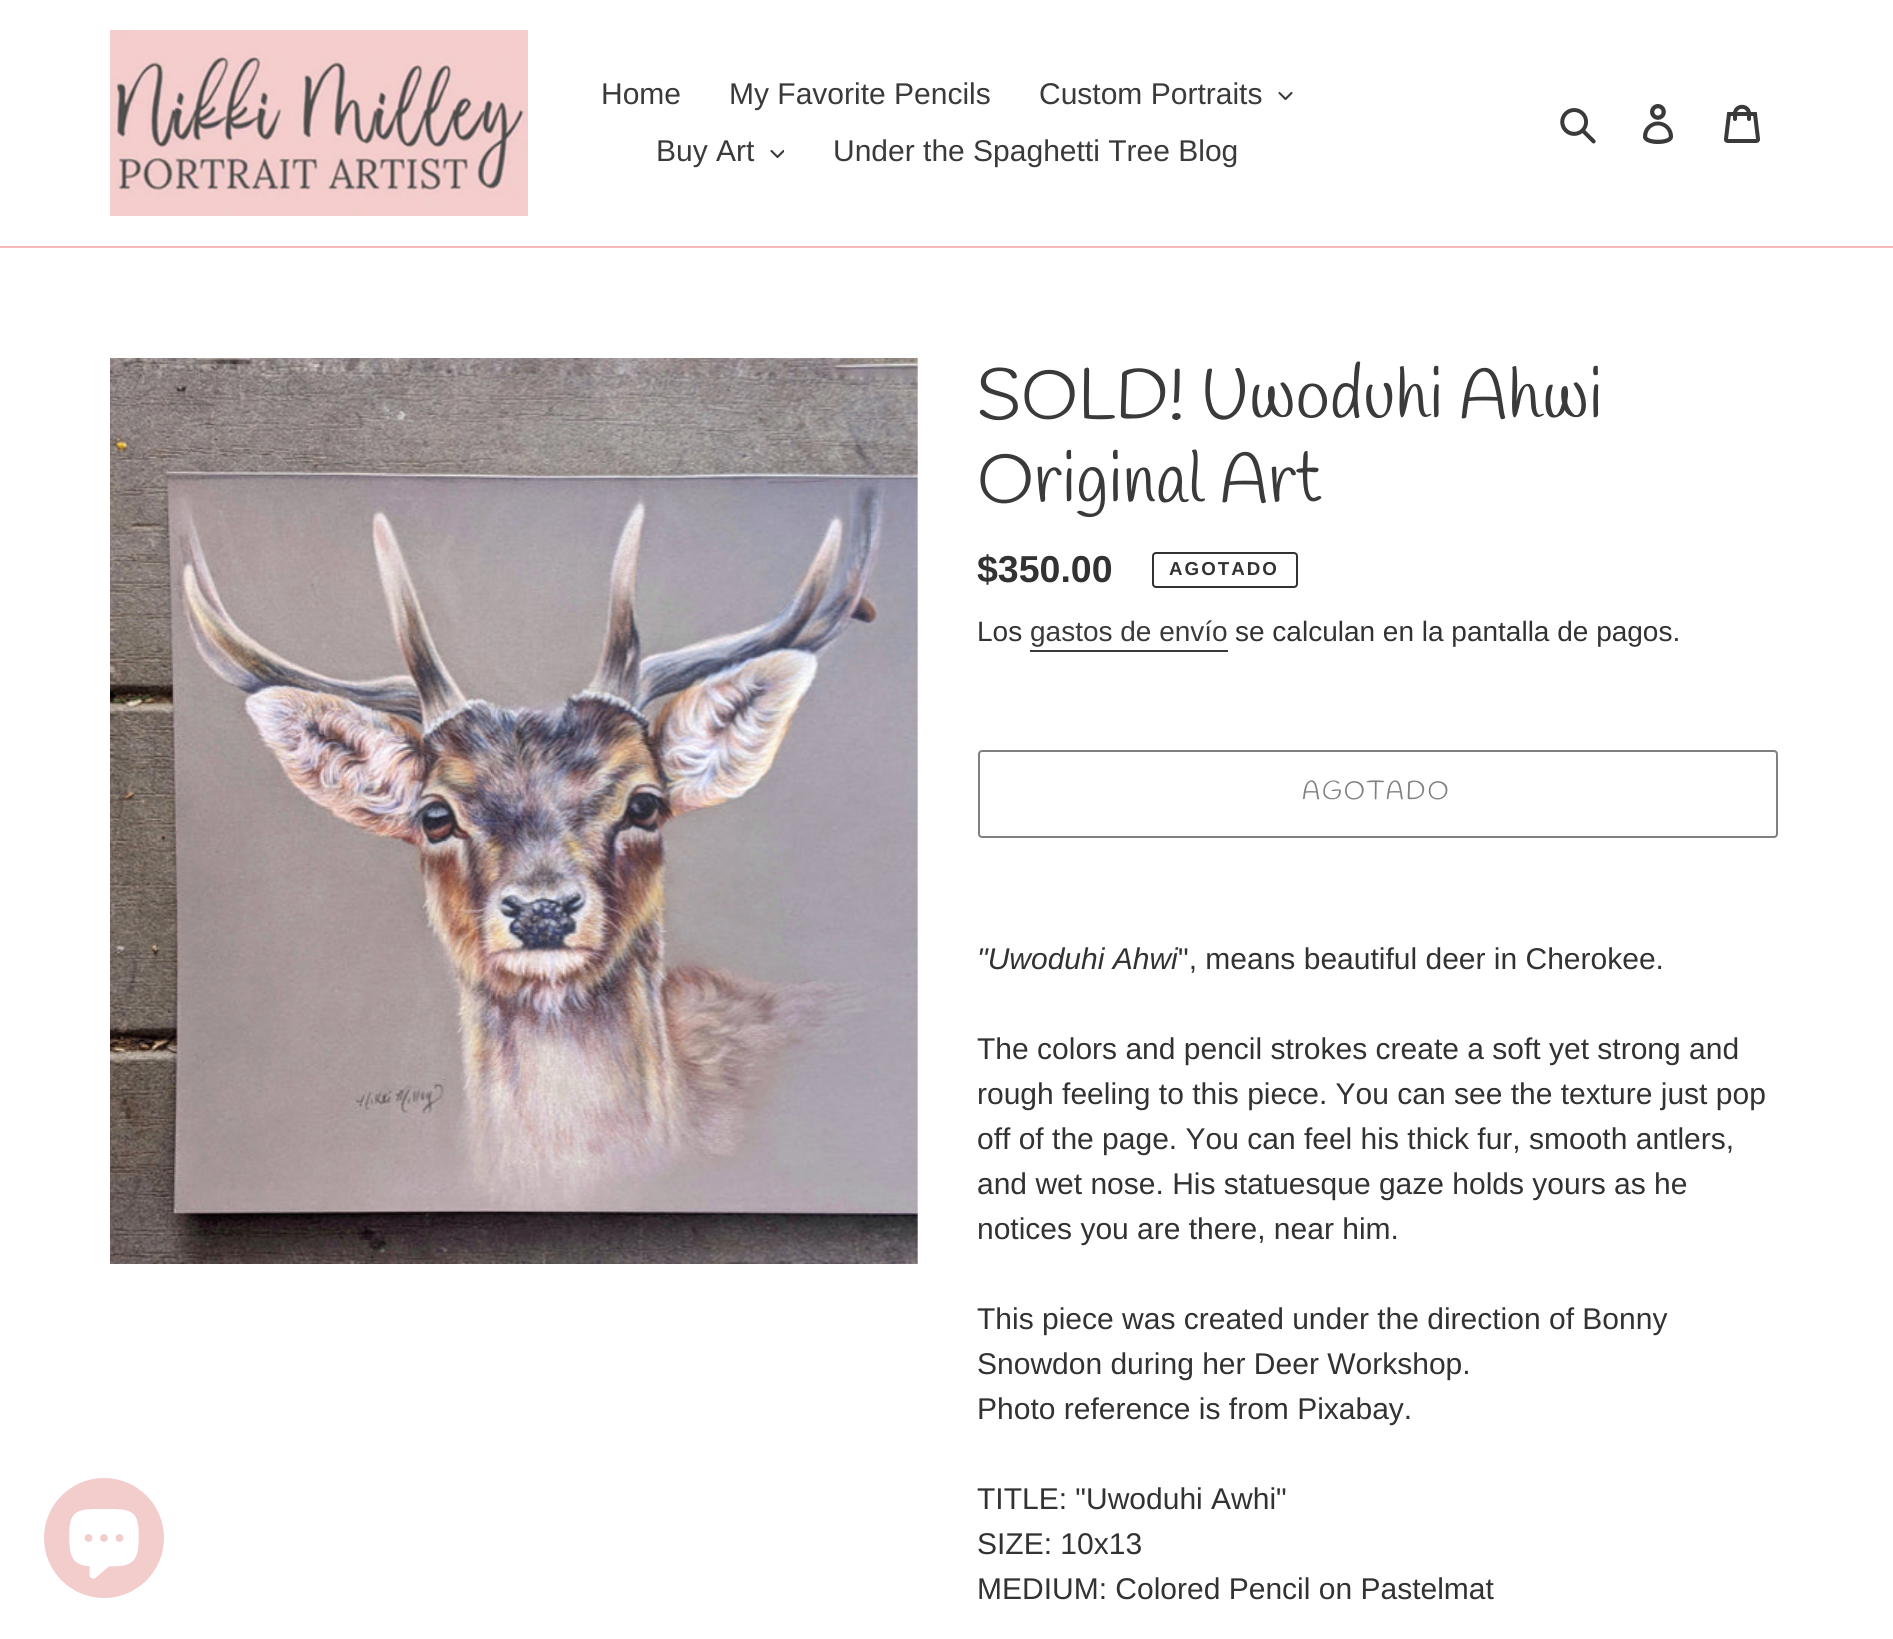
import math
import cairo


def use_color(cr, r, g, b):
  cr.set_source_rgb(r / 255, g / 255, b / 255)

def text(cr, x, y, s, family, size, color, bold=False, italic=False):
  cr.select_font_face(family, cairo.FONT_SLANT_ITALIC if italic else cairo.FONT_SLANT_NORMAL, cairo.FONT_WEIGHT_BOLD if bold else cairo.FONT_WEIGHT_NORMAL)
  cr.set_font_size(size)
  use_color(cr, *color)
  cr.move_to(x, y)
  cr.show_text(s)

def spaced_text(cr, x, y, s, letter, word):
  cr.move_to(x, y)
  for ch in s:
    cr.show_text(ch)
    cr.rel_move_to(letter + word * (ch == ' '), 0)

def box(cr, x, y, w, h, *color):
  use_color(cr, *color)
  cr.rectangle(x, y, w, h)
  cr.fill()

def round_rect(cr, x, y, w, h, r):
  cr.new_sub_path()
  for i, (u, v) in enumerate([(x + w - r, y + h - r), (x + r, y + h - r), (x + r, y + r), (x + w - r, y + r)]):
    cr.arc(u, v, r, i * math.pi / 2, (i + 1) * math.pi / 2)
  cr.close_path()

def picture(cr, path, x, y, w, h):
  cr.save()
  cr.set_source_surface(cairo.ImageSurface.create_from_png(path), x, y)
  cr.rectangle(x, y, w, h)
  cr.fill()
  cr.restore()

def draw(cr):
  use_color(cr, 255, 255, 255)
  cr.paint()
  box(cr, 0, 246, 1893, 2, 250, 185, 184)
  picture(cr, "img_01.png", 110, 30, 418, 186)
  picture(cr, "img_02.png", 1278, 92, 15, 8)
  picture(cr, "img_03.png", 770, 150, 14, 8)
  picture(cr, "img_04.png", 1560, 108, 36, 36)
  picture(cr, "img_05.png", 1643, 104, 31, 40)
  picture(cr, "img_06.png", 1724, 104, 36, 39)
  use_color(cr, 243, 204, 204)
  cr.arc(104, 1538, 60, 0, 2 * math.pi)
  cr.fill()
  picture(cr, "img_07.png", 69, 1509, 70, 70)
  picture(cr, "img_08.png", 110, 358, 808, 906)
  round_rect(cr, 1153, 553, 144, 34, 3)
  use_color(cr, 51, 50, 50)
  cr.stroke()
  box(cr, 1030, 650, 198, 2, 58, 58, 58)
  round_rect(cr, 979, 751, 798, 86, 3)
  use_color(cr, 128, 128, 128)
  cr.stroke()
  text(cr, 601, 104, "Home", "Liberation Sans", 30, (58, 58, 58))
  text(cr, 729, 104, "My Favorite Pencils", "Liberation Sans", 30, (58, 58, 58))
  text(cr, 1039, 104, "Custom Portraits", "Liberation Sans", 30, (58, 58, 58))
  text(cr, 656, 161, "Buy Art", "Liberation Sans", 30, (58, 58, 58))
  text(cr, 833, 161, "Under the Spaghetti Tree Blog", "Liberation Sans", 30, (58, 58, 58))
  text(cr, 977, 418, "SOLD! Uwoduhi Ahwi", "Handlee", 70, (58, 58, 58))
  text(cr, 977, 502, "Original Art", "Handlee", 70, (58, 58, 58))
  text(cr, 977, 582, "$350.00", "Liberation Sans", 37.5, (51, 50, 50), bold=True)
  cr.set_font_size(18.75)
  spaced_text(cr, 1169, 575, "AGOTADO", 2, 0)
  text(cr, 977, 641, "Los", "Liberation Sans", 28, (51, 50, 50))
  text(cr, 1030, 641, "gastos de envío", "Liberation Sans", 28, (58, 58, 58))
  text(cr, 1235, 641, "se calculan en la pantalla de pagos.", "Liberation Sans", 28, (51, 50, 50))
  cr.select_font_face("Handlee")
  cr.set_font_size(26)
  use_color(cr, 128, 128, 128)
  spaced_text(cr, 1302, 799, "AGOTADO", 2, 0)
  text(cr, 977, 969, "\"Uwoduhi Ahwi", "Liberation Sans", 30, (51, 50, 50), italic=True)
  text(cr, 1178, 969, "\", means beautiful deer in Cherokee.", "Liberation Sans", 30, (51, 50, 50))
  text(cr, 977, 1059, "The colors and pencil strokes create a soft yet strong and", "Liberation Sans", 30, (51, 50, 50))
  text(cr, 977, 1104, "rough feeling to this piece. You can see the texture just pop", "Liberation Sans", 30, (51, 50, 50))
  text(cr, 977, 1149, "off of the page. You can feel his thick fur, smooth antlers,", "Liberation Sans", 30, (51, 50, 50))
  text(cr, 977, 1194, "and wet nose. His statuesque gaze holds yours as he", "Liberation Sans", 30, (51, 50, 50))
  text(cr, 977, 1239, "notices you are there, near him.", "Liberation Sans", 30, (51, 50, 50))
  text(cr, 977, 1329, "This piece was created under the direction of Bonny", "Liberation Sans", 30, (51, 50, 50))
  text(cr, 977, 1374, "Snowdon during her Deer Workshop.", "Liberation Sans", 30, (51, 50, 50))
  text(cr, 977, 1419, "Photo reference is from Pixabay.", "Liberation Sans", 30, (51, 50, 50))
  text(cr, 977, 1509, "TITLE: \"Uwoduhi Awhi\"", "Liberation Sans", 30, (51, 50, 50))
  text(cr, 977, 1554, "SIZE: 10x13", "Liberation Sans", 30, (51, 50, 50))
  text(cr, 977, 1599, "MEDIUM: Colored Pencil on Pastelmat", "Liberation Sans", 30, (51, 50, 50))


surface = cairo.ImageSurface(cairo.FORMAT_RGB24, 1893, 1639)
cr = cairo.Context(surface)
options = cairo.FontOptions()
options.set_hint_metrics(cairo.HINT_METRICS_OFF)
options.set_hint_style(cairo.HINT_STYLE_NONE)
cr.set_font_options(options)
cr.set_miter_limit(4)
draw(cr)
surface.write_to_png("out.png")
